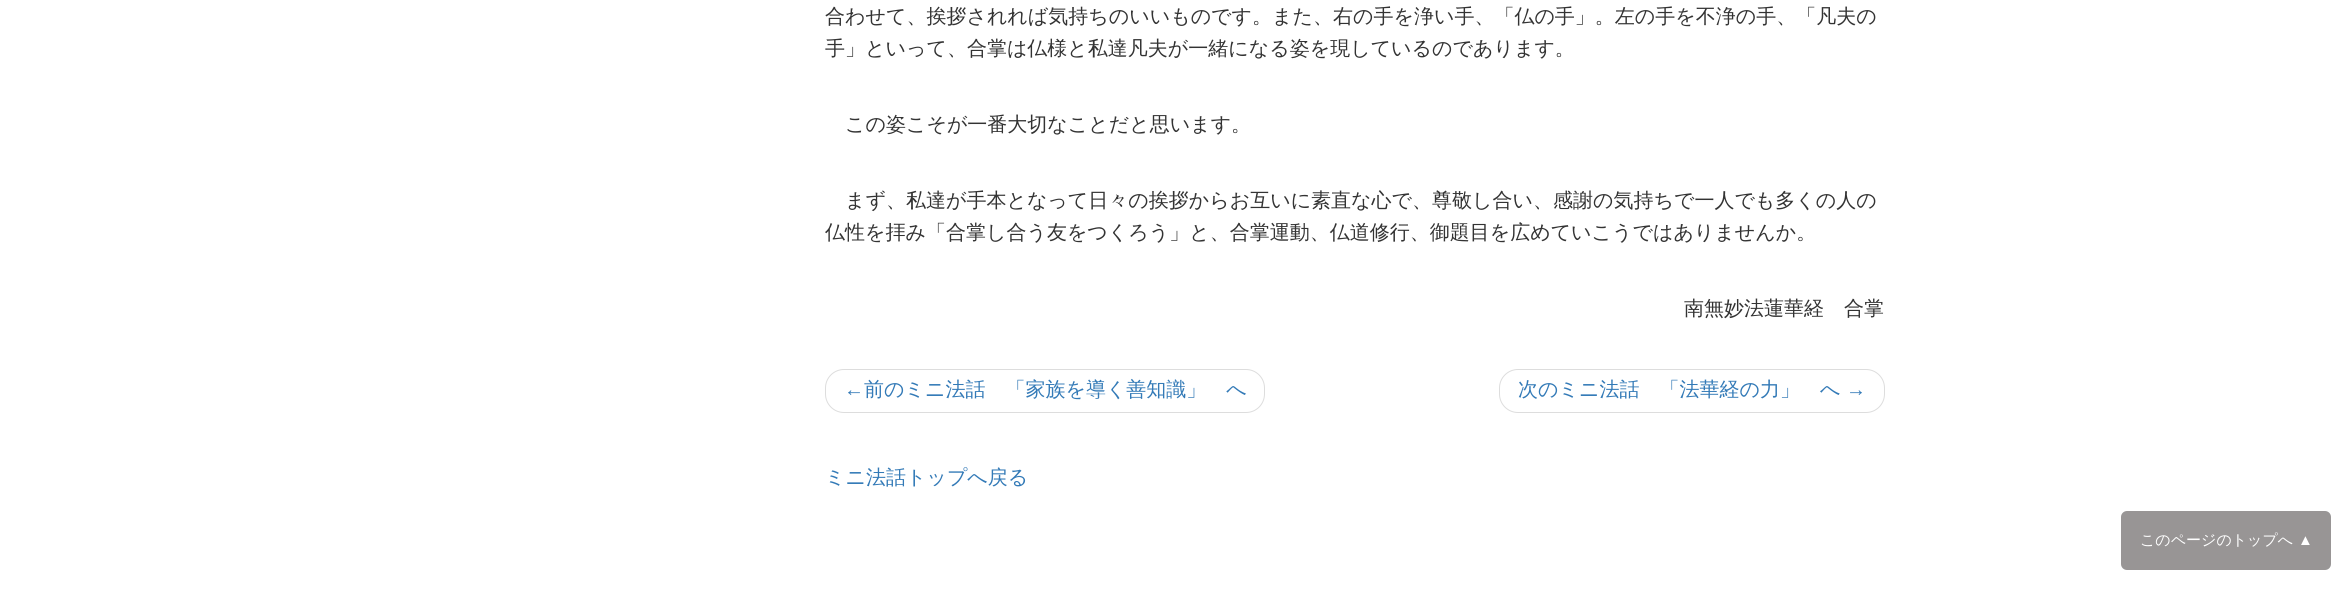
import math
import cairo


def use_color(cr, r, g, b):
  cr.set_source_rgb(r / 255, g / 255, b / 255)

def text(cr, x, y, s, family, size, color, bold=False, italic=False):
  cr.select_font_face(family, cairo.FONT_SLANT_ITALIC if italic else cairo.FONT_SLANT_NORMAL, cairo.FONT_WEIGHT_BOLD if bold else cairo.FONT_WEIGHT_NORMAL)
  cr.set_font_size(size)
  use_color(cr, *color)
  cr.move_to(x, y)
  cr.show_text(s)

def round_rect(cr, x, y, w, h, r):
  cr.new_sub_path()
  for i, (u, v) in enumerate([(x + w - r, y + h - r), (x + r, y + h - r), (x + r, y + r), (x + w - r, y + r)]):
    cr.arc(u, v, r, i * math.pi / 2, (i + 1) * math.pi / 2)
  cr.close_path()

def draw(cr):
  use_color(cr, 255, 255, 255)
  cr.paint()
  round_rect(cr, 825.5, 369.5, 439, 43, 18.5)
  use_color(cr, 221, 221, 221)
  cr.set_line_width(1)
  cr.stroke()
  round_rect(cr, 1499.5, 369.5, 385, 43, 18.5)
  cr.stroke()
  use_color(cr, 152, 149, 149)
  round_rect(cr, 2121, 511, 210, 59, 6)
  cr.fill()
  text(cr, 825, 23, "合わせて、挨拶されれば気持ちのいいものです。また、右の手を浄い手、「仏の手」。左の手を不浄の手、「凡夫の", "WenQuanYi Zen Hei Medium", 20, (51, 51, 51))
  text(cr, 825, 55, "手」といって、合掌は仏様と私達凡夫が一緒になる姿を現しているのであります。", "WenQuanYi Zen Hei Medium", 20, (51, 51, 51))
  text(cr, 845, 131, "この姿こそが一番大切なことだと思います。", "WenQuanYi Zen Hei Medium", 20, (51, 51, 51))
  text(cr, 845, 207, "まず、私達が手本となって日々の挨拶からお互いに素直な心で、尊敬し合い、感謝の気持ちで一人でも多くの人の", "WenQuanYi Zen Hei Medium", 20, (51, 51, 51))
  text(cr, 825, 239, "仏性を拝み「合掌し合う友をつくろう」と、合掌運動、仏道修行、御題目を広めていこうではありませんか。", "WenQuanYi Zen Hei Medium", 20, (51, 51, 51))
  text(cr, 1684, 315, "南無妙法蓮華経　合掌", "WenQuanYi Zen Hei Medium", 20, (51, 51, 51))
  text(cr, 844, 396, "←", "Liberation Sans", 20, (51, 122, 183))
  text(cr, 864, 396, "前のミニ法話　「家族を導く善知識」　へ", "WenQuanYi Zen Hei Medium", 20, (51, 122, 183))
  text(cr, 1518, 396, "次のミニ法話　「法華経の力」　へ", "WenQuanYi Zen Hei Medium", 20, (51, 122, 183))
  text(cr, 1846, 396, "→", "Liberation Sans", 20, (51, 122, 183))
  text(cr, 825, 484, "ミニ法話トップへ戻る", "WenQuanYi Zen Hei Medium", 20, (51, 122, 183))
  text(cr, 2140, 545, "このページのトップへ", "WenQuanYi Zen Hei Medium", 15, (255, 255, 255))
  text(cr, 2298, 545, "▲", "Liberation Sans", 15, (255, 255, 255))


surface = cairo.ImageSurface(cairo.FORMAT_RGB24, 2343, 595)
cr = cairo.Context(surface)
options = cairo.FontOptions()
options.set_hint_metrics(cairo.HINT_METRICS_OFF)
options.set_hint_style(cairo.HINT_STYLE_NONE)
cr.set_font_options(options)
cr.set_miter_limit(4)
draw(cr)
surface.write_to_png("out.png")
